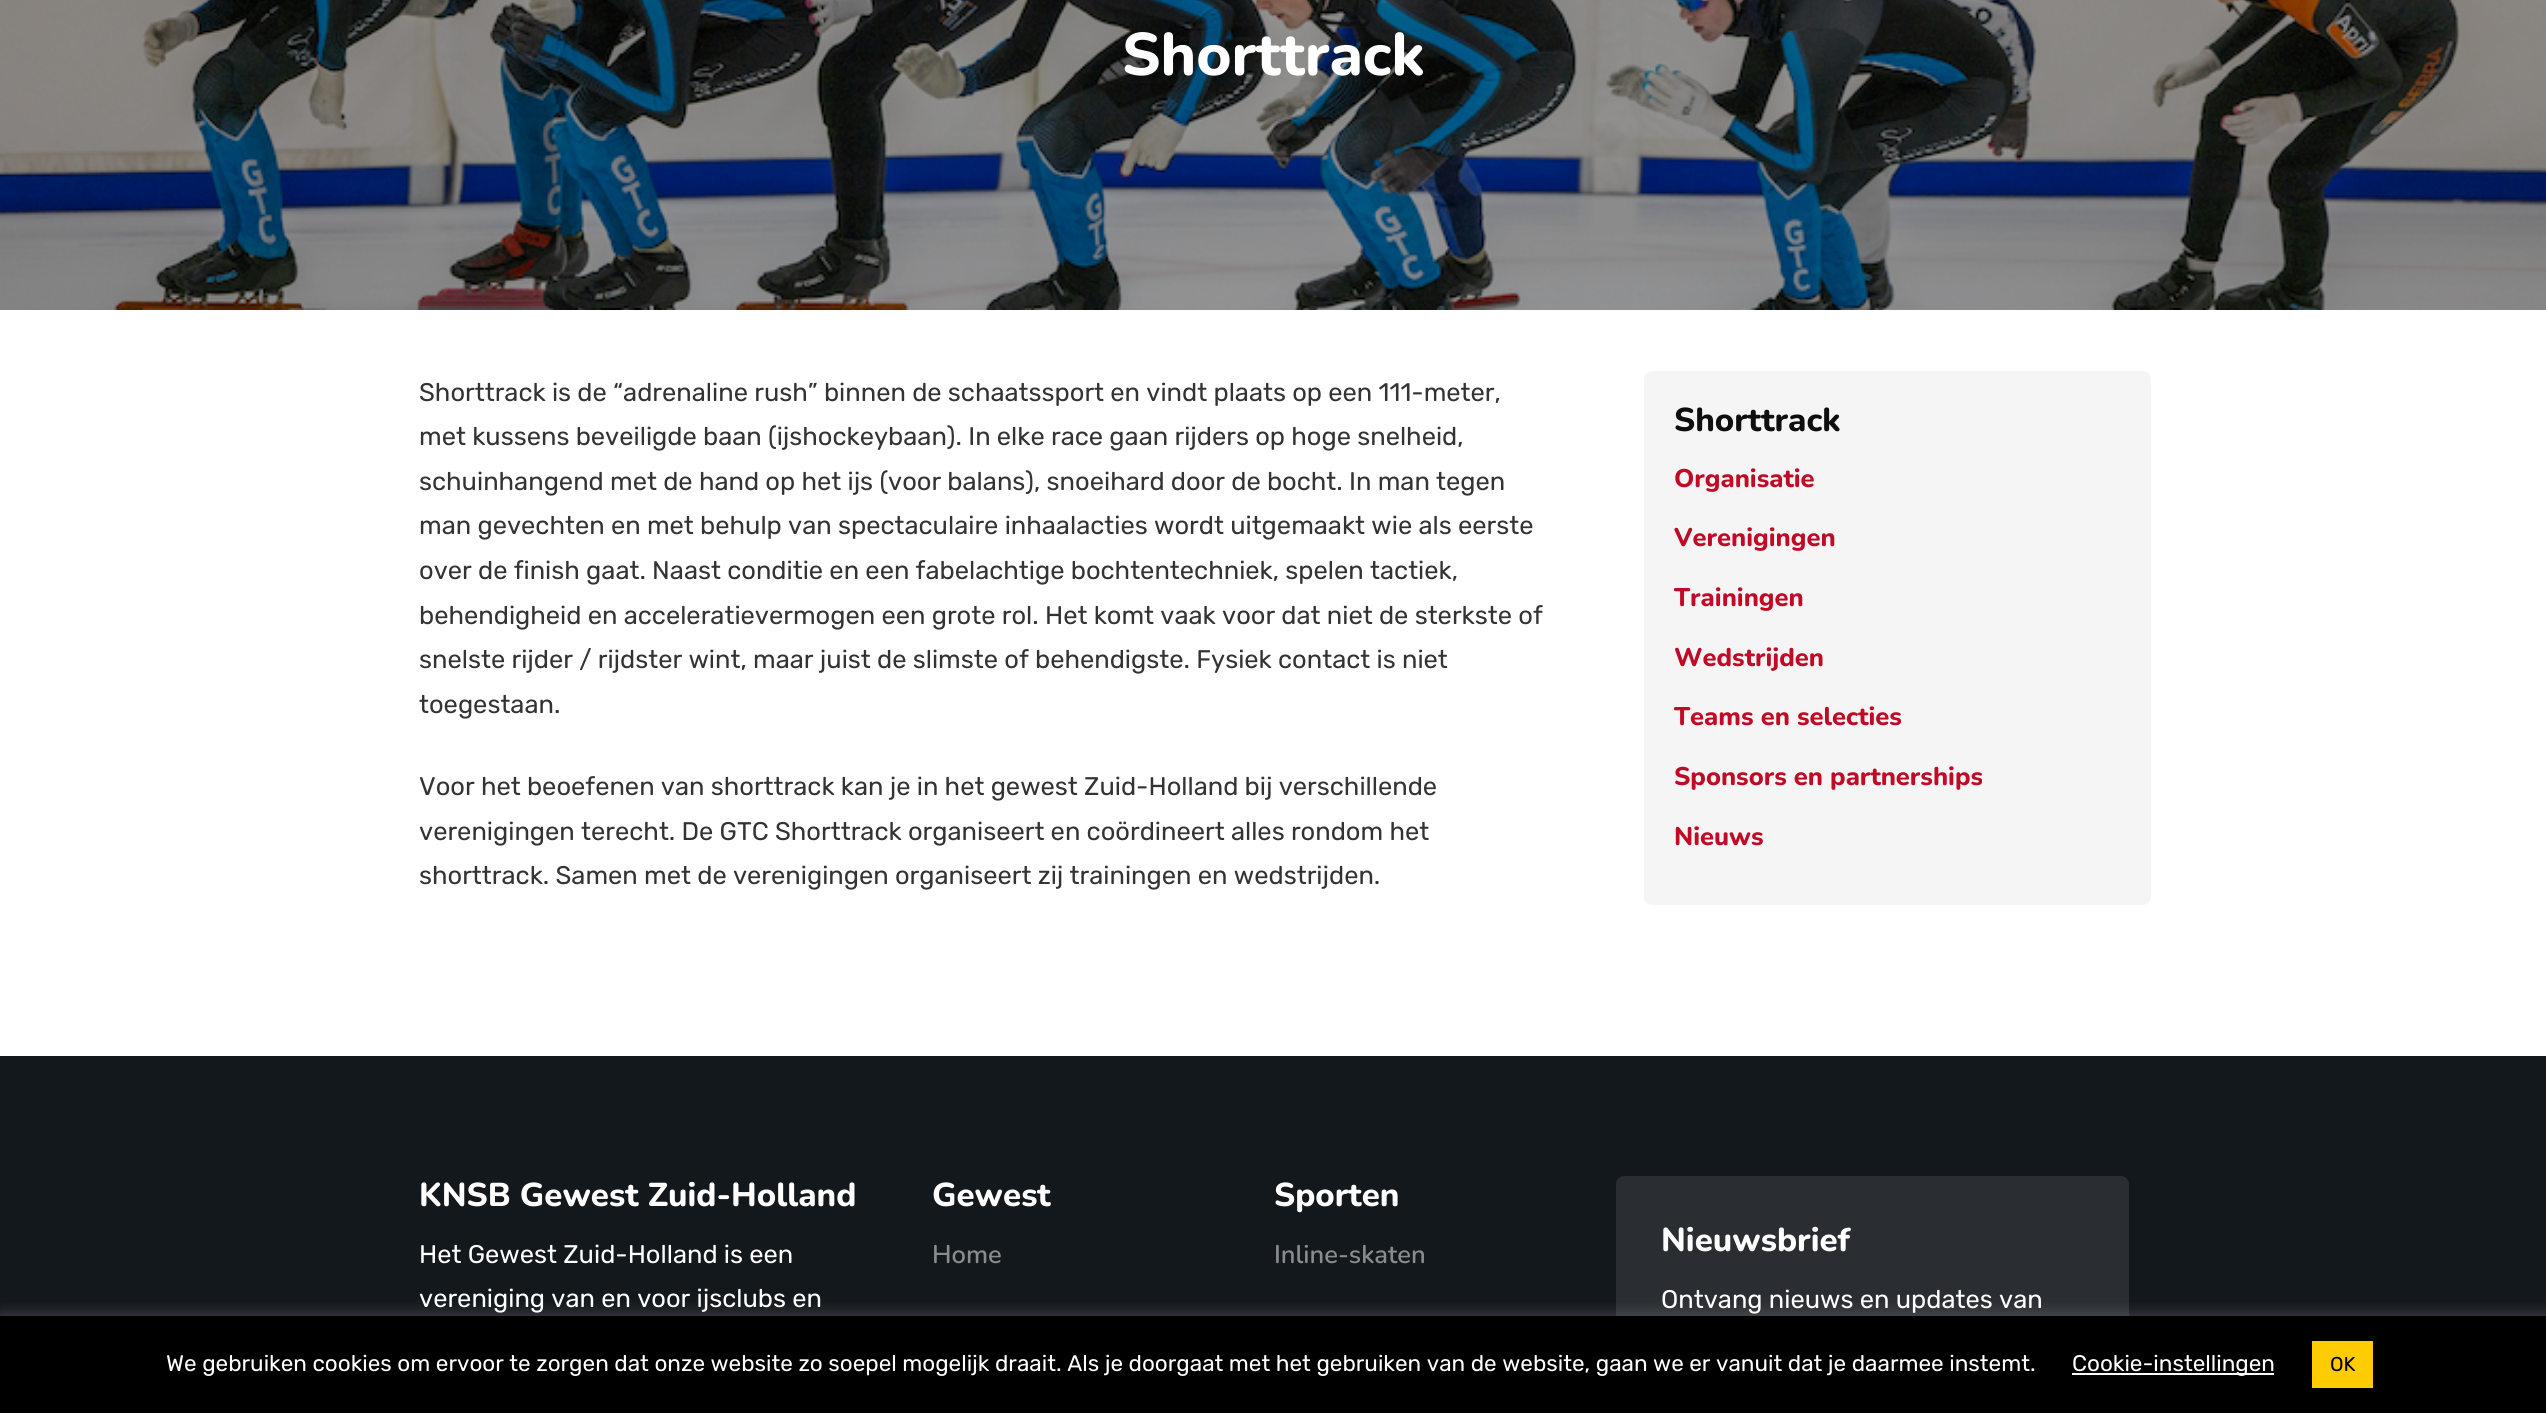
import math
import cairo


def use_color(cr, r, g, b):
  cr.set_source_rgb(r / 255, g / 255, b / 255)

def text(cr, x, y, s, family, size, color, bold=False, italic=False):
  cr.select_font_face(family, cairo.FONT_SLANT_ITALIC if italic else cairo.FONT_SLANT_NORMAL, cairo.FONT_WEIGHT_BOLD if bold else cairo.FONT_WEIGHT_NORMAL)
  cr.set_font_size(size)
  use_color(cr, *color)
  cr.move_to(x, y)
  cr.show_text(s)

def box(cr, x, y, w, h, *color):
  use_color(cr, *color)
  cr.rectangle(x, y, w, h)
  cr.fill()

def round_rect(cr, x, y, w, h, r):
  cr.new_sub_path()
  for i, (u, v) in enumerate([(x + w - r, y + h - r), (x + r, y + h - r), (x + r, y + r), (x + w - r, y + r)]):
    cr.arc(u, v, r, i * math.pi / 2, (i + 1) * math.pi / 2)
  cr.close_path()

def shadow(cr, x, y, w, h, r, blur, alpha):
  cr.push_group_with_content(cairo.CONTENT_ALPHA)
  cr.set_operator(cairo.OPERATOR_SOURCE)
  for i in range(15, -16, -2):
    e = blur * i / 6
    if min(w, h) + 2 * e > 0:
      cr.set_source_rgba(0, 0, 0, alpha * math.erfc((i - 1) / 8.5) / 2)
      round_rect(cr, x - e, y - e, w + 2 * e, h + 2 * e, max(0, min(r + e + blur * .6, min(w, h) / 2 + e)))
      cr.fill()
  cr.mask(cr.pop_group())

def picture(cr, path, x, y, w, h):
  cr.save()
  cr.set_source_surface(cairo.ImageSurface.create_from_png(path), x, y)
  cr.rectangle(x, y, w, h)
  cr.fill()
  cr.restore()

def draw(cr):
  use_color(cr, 255, 255, 255)
  cr.paint()
  picture(cr, "img_01.png", 0, 0, 2546, 310)
  use_color(cr, 245, 245, 245)
  round_rect(cr, 1644, 371, 507, 534, 8)
  cr.fill()
  box(cr, 0, 1056, 2546, 260, 19, 24, 28)
  use_color(cr, 42, 46, 50)
  round_rect(cr, 1616, 1176, 513, 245, 8)
  cr.fill()
  use_color(cr, 172, 171, 171)
  shadow(cr, 0, 1314, 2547, 98, 0, 7.5, 0.3)
  box(cr, 0, 1316, 2546, 97, 0, 0, 0)
  box(cr, 2072, 1373, 202, 2, 255, 255, 255)
  box(cr, 2312, 1341, 61, 47, 254, 204, 0)
  text(cr, 1122, 75, "Shorttrack", "Nunito ExtraBold", 60, (255, 255, 255))
  text(cr, 419, 401, "Shorttrack is de “adrenaline rush” binnen de schaatssport en vindt plaats op een 111-meter,", "Rubik Light", 25.5, (51, 51, 51))
  text(cr, 419, 445, "met kussens beveiligde baan (ijshockeybaan). In elke race gaan rijders op hoge snelheid,", "Rubik Light", 25.5, (51, 51, 51))
  text(cr, 419, 490, "schuinhangend met de hand op het ijs (voor balans), snoeihard door de bocht. In man tegen", "Rubik Light", 25.5, (51, 51, 51))
  text(cr, 419, 534, "man gevechten en met behulp van spectaculaire inhaalacties wordt uitgemaakt wie als eerste", "Rubik Light", 25.5, (51, 51, 51))
  text(cr, 419, 579, "over de finish gaat. Naast conditie en een fabelachtige bochtentechniek, spelen tactiek,", "Rubik Light", 25.5, (51, 51, 51))
  text(cr, 419, 624, "behendigheid en acceleratievermogen een grote rol. Het komt vaak voor dat niet de sterkste of", "Rubik Light", 25.5, (51, 51, 51))
  text(cr, 419, 668, "snelste rijder / rijdster wint, maar juist de slimste of behendigste. Fysiek contact is niet", "Rubik Light", 25.5, (51, 51, 51))
  text(cr, 419, 713, "toegestaan.", "Rubik Light", 25.5, (51, 51, 51))
  text(cr, 419, 795, "Voor het beoefenen van shorttrack kan je in het gewest Zuid-Holland bij verschillende", "Rubik Light", 25.5, (51, 51, 51))
  text(cr, 419, 840, "verenigingen terecht. De GTC Shorttrack organiseert en coördineert alles rondom het", "Rubik Light", 25.5, (51, 51, 51))
  text(cr, 419, 884, "shorttrack. Samen met de verenigingen organiseert zij trainingen en wedstrijden.", "Rubik Light", 25.5, (51, 51, 51))
  text(cr, 1674, 431, "Shorttrack", "Nunito ExtraBold", 33, (15, 14, 14))
  text(cr, 1674, 487, "Organisatie", "Nunito ExtraBold", 25.5, (192, 10, 38))
  text(cr, 1674, 546, "Verenigingen", "Nunito ExtraBold", 25.5, (192, 10, 38))
  text(cr, 1674, 606, "Trainingen", "Nunito ExtraBold", 25.5, (192, 10, 38))
  text(cr, 1674, 666, "Wedstrijden", "Nunito ExtraBold", 25.5, (192, 10, 38))
  text(cr, 1674, 725, "Teams en selecties", "Nunito ExtraBold", 25.5, (192, 10, 38))
  text(cr, 1674, 785, "Sponsors en partnerships", "Nunito ExtraBold", 25.5, (192, 10, 38))
  text(cr, 1674, 845, "Nieuws", "Nunito ExtraBold", 25.5, (192, 10, 38))
  text(cr, 419, 1206, "KNSB Gewest Zuid-Holland", "Nunito ExtraBold", 33, (255, 255, 255))
  text(cr, 419, 1263, "Het Gewest Zuid-Holland is een", "Rubik Light", 25.5, (255, 255, 255))
  text(cr, 419, 1307, "vereniging van en voor ijsclubs en", "Rubik Light", 25.5, (255, 255, 255))
  text(cr, 932, 1206, "Gewest", "Nunito ExtraBold", 33, (255, 255, 255))
  text(cr, 932, 1263, "Home", "Nunito SemiBold", 25.5, (137, 140, 142))
  text(cr, 1274, 1206, "Sporten", "Nunito ExtraBold", 33, (255, 255, 255))
  text(cr, 1274, 1263, "Inline-skaten", "Nunito SemiBold", 25.5, (137, 140, 142))
  text(cr, 1661, 1251, "Nieuwsbrief", "Nunito ExtraBold", 33, (255, 255, 255))
  text(cr, 1661, 1308, "Ontvang nieuws en updates van", "Rubik Light", 25.5, (255, 255, 255))
  text(cr, 166, 1371, "We gebruiken cookies om ervoor te zorgen dat onze website zo soepel mogelijk draait. Als je doorgaat met het gebruiken van de website, gaan we er vanuit dat je daarmee instemt.", "Rubik Light", 22.5, (255, 255, 255))
  text(cr, 2072, 1371, "Cookie-instellingen", "Rubik Light", 22.5, (255, 255, 255))
  text(cr, 2330, 1371, "OK", "Rubik Light", 20, (0, 0, 0))


surface = cairo.ImageSurface(cairo.FORMAT_RGB24, 2546, 1413)
cr = cairo.Context(surface)
options = cairo.FontOptions()
options.set_hint_metrics(cairo.HINT_METRICS_OFF)
options.set_hint_style(cairo.HINT_STYLE_NONE)
cr.set_font_options(options)
cr.set_miter_limit(4)
draw(cr)
surface.write_to_png("out.png")
